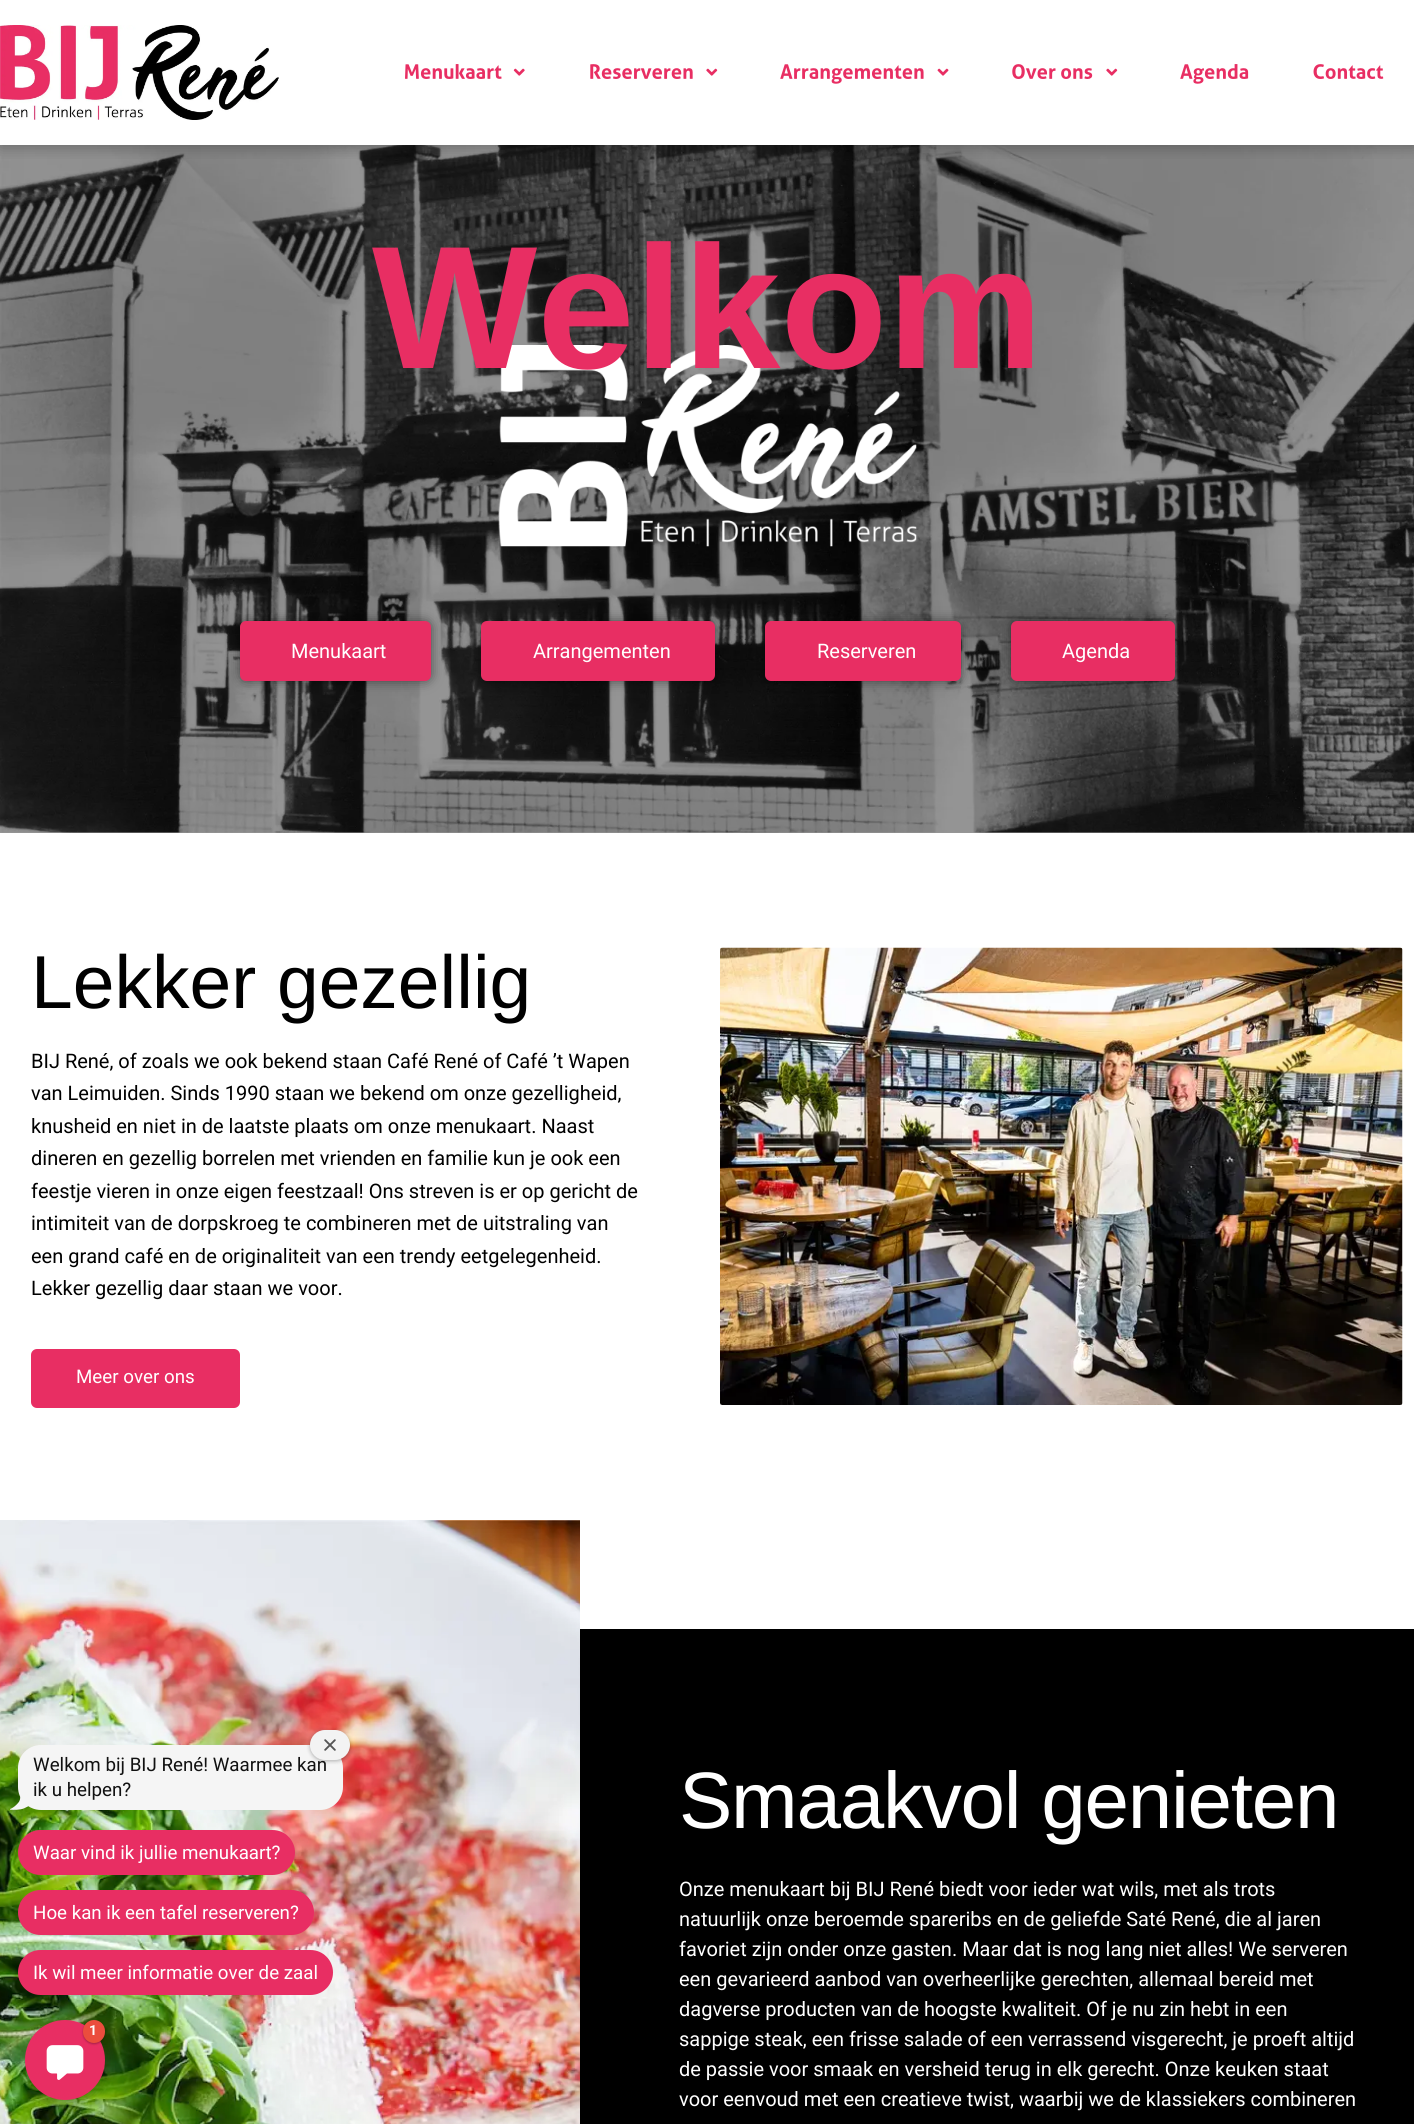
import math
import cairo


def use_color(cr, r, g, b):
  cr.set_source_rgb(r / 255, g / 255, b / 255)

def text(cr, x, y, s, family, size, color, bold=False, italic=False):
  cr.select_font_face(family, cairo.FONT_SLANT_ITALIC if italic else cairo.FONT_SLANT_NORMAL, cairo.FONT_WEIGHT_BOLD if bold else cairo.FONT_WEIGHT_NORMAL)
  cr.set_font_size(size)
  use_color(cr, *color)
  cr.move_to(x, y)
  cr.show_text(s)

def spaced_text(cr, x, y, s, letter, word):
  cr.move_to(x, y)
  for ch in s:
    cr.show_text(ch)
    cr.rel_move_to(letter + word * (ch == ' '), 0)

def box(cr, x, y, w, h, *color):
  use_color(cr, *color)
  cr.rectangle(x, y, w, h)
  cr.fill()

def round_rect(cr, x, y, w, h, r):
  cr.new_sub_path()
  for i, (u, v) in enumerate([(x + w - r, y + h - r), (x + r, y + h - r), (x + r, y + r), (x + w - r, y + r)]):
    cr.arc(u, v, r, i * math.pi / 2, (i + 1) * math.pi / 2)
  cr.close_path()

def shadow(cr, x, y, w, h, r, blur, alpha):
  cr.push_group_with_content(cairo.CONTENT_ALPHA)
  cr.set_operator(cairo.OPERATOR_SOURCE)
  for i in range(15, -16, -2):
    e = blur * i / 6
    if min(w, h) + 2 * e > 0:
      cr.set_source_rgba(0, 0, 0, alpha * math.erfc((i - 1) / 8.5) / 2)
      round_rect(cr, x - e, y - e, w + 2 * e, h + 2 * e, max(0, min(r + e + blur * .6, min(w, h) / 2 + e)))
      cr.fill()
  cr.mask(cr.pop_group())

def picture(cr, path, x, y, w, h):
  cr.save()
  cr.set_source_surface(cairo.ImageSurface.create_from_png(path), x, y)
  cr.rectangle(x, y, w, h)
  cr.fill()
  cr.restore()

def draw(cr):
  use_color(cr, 255, 255, 255)
  cr.paint()
  box(cr, 0, 832, 1414, 1, 153, 153, 153)
  picture(cr, "img_11.png", 0, 145, 1414, 688)
  cr.save()
  cr.rectangle(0, 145, 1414, 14)
  cr.clip()
  use_color(cr, 0, 0, 0)
  shadow(cr, 0, 3, 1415, 145, 0, 7.5, 0.25)
  cr.restore()
  picture(cr, "img_01.png", 0, 25, 279, 95)
  picture(cr, "img_02.png", 405, 64, 97, 15)
  picture(cr, "img_03.png", 513, 68, 12, 8)
  picture(cr, "img_04.png", 590, 64, 103, 15)
  picture(cr, "img_05.png", 706, 68, 12, 8)
  picture(cr, "img_06.png", 780, 64, 144, 20)
  picture(cr, "img_07.png", 937, 68, 12, 8)
  picture(cr, "img_08.png", 1012, 64, 81, 15)
  picture(cr, "img_05.png", 1106, 68, 12, 8)
  picture(cr, "img_09.png", 1180, 64, 69, 20)
  picture(cr, "img_10.png", 1313, 64, 71, 15)
  picture(cr, "img_12.png", 498, 345, 419, 202)
  use_color(cr, 0, 0, 0)
  shadow(cr, 240, 621, 191, 60, 6, 6, 0.5)
  use_color(cr, 232, 46, 99)
  round_rect(cr, 240, 621, 191, 60, 6)
  cr.fill()
  use_color(cr, 0, 0, 0)
  shadow(cr, 481, 621, 234, 60, 6, 6, 0.5)
  use_color(cr, 232, 46, 99)
  round_rect(cr, 481, 621, 234, 60, 6)
  cr.fill()
  use_color(cr, 0, 0, 0)
  shadow(cr, 765, 621, 196, 60, 6, 6, 0.5)
  use_color(cr, 232, 46, 99)
  round_rect(cr, 765, 621, 196, 60, 6)
  cr.fill()
  use_color(cr, 0, 0, 0)
  shadow(cr, 1011, 621, 164, 60, 6, 6, 0.5)
  use_color(cr, 232, 46, 99)
  round_rect(cr, 1011, 621, 164, 60, 6)
  cr.fill()
  round_rect(cr, 31, 1349, 209, 59, 6)
  cr.fill()
  picture(cr, "img_13.png", 720, 947, 683, 458)
  picture(cr, "img_14.png", 0, 1520, 580, 604)
  box(cr, 580, 1629, 834, 495, 0, 0, 0)
  use_color(cr, 245, 245, 245)
  round_rect(cr, 18, 1745, 325, 65, 23)
  cr.fill()
  use_color(cr, 0, 0, 0)
  shadow(cr, 310, 1731, 40, 30, 15, 2, 0.3)
  picture(cr, "img_16.png", 10, 1796, 19, 14)
  use_color(cr, 232, 46, 99)
  round_rect(cr, 18, 1830, 277, 45, 22.5)
  cr.fill()
  round_rect(cr, 18, 1890, 296, 45, 22.5)
  cr.fill()
  round_rect(cr, 18, 1950, 315, 45, 22.5)
  cr.fill()
  use_color(cr, 0, 0, 0)
  shadow(cr, 25, 2025, 80, 80, 40, 7.5, 0.3)
  use_color(cr, 232, 46, 99)
  cr.arc(65, 2060, 40, 0, 2 * math.pi)
  cr.fill()
  picture(cr, "img_17.png", 46, 2045, 38, 35)
  use_color(cr, 0, 0, 0)
  shadow(cr, 83, 2021, 22, 23, 11, 1, 0.3)
  use_color(cr, 235, 77, 61)
  round_rect(cr, 83, 2020, 22, 23, 11)
  cr.fill()
  text(cr, 372, 368, "Welkom", "Liberation Sans", 175, (232, 46, 99), bold=True)
  text(cr, 291, 658, "Menukaart", "Roboto", 20, (255, 255, 255))
  text(cr, 533, 658, "Arrangementen", "Roboto", 20, (255, 255, 255))
  text(cr, 817, 658, "Reserveren", "Roboto", 20, (255, 255, 255))
  text(cr, 1062, 658, "Agenda", "Roboto", 20, (255, 255, 255))
  text(cr, 31, 1008, "Lekker gezellig", "Liberation Sans", 75, (0, 0, 0))
  text(cr, 31, 1068, "BIJ René, of zoals we ook bekend staan Café René of Café ’t Wapen", "Roboto", 20, (0, 0, 0))
  text(cr, 31, 1100, "van Leimuiden. Sinds 1990 staan we bekend om onze gezelligheid,", "Roboto", 20, (0, 0, 0))
  text(cr, 31, 1133, "knusheid en niet in de laatste plaats om onze menukaart. Naast", "Roboto", 20, (0, 0, 0))
  text(cr, 31, 1165, "dineren en gezellig borrelen met vrienden en familie kun je ook een", "Roboto", 20, (0, 0, 0))
  text(cr, 31, 1198, "feestje vieren in onze eigen feestzaal! Ons streven is er op gericht de", "Roboto", 20, (0, 0, 0))
  text(cr, 31, 1230, "intimiteit van de dorpskroeg te combineren met de uitstraling van", "Roboto", 20, (0, 0, 0))
  text(cr, 31, 1263, "een grand café en de originaliteit van een trendy eetgelegenheid.", "Roboto", 20, (0, 0, 0))
  text(cr, 31, 1295, "Lekker gezellig daar staan we voor.", "Roboto", 20, (0, 0, 0))
  text(cr, 76, 1383, "Meer over ons", "Roboto", 18.75, (255, 255, 255))
  cr.select_font_face("Liberation Sans")
  cr.set_font_size(80)
  spaced_text(cr, 679, 1828, "Smaakvol genieten", -1.25, 0)
  text(cr, 679, 1896, "Onze menukaart bij BIJ René biedt voor ieder wat wils, met als trots", "Roboto", 20, (255, 255, 255))
  text(cr, 679, 1926, "natuurlijk onze beroemde spareribs en de geliefde Saté René, die al jaren", "Roboto", 20, (255, 255, 255))
  text(cr, 679, 1956, "favoriet zijn onder onze gasten. Maar dat is nog lang niet alles! We serveren", "Roboto", 20, (255, 255, 255))
  text(cr, 679, 1986, "een gevarieerd aanbod van overheerlijke gerechten, allemaal bereid met", "Roboto", 20, (255, 255, 255))
  text(cr, 679, 2016, "dagverse producten van de hoogste kwaliteit. Of je nu zin hebt in een", "Roboto", 20, (255, 255, 255))
  text(cr, 679, 2046, "sappige steak, een frisse salade of een verrassend visgerecht, je proeft altijd", "Roboto", 20, (255, 255, 255))
  text(cr, 679, 2076, "de passie voor smaak en versheid terug in elk gerecht. Onze keuken staat", "Roboto", 20, (255, 255, 255))
  text(cr, 679, 2106, "voor eenvoud met een creatieve twist, waarbij we de klassiekers combineren", "Roboto", 20, (255, 255, 255))
  text(cr, 33, 1771, "Welkom bij BIJ René! Waarmee kan", "Roboto", 18.75, (17, 17, 17))
  use_color(cr, 243, 243, 243)
  round_rect(cr, 310, 1730, 40, 30, 15)
  cr.fill()
  picture(cr, "img_15.png", 324, 1739, 12, 12)
  text(cr, 33, 1796, "ik u helpen?", "Roboto", 18.75, (17, 17, 17))
  text(cr, 33, 1859, "Waar vind ik jullie menukaart?", "Roboto", 18.75, (255, 255, 255))
  text(cr, 33, 1919, "Hoe kan ik een tafel reserveren?", "Roboto", 18.75, (255, 255, 255))
  text(cr, 33, 1979, "Ik wil meer informatie over de zaal", "Roboto", 18.75, (255, 255, 255))
  text(cr, 89, 2035, "1", "Roboto", 14, (255, 255, 255), bold=True)


surface = cairo.ImageSurface(cairo.FORMAT_RGB24, 1414, 2124)
cr = cairo.Context(surface)
options = cairo.FontOptions()
options.set_hint_metrics(cairo.HINT_METRICS_OFF)
options.set_hint_style(cairo.HINT_STYLE_NONE)
cr.set_font_options(options)
cr.set_miter_limit(4)
draw(cr)
surface.write_to_png("out.png")
